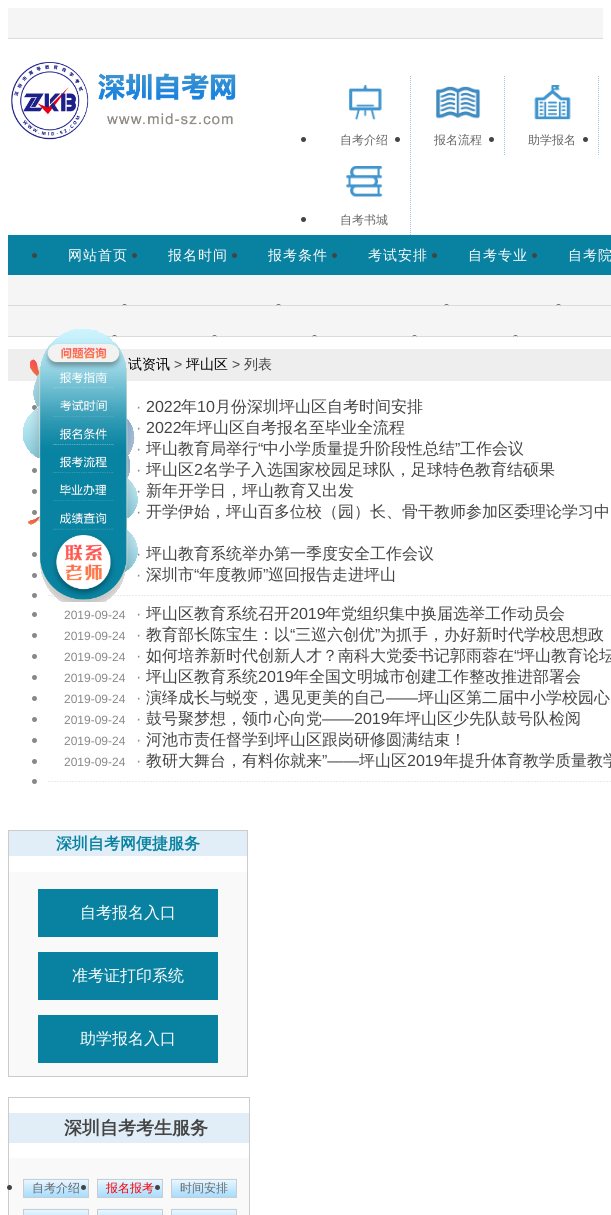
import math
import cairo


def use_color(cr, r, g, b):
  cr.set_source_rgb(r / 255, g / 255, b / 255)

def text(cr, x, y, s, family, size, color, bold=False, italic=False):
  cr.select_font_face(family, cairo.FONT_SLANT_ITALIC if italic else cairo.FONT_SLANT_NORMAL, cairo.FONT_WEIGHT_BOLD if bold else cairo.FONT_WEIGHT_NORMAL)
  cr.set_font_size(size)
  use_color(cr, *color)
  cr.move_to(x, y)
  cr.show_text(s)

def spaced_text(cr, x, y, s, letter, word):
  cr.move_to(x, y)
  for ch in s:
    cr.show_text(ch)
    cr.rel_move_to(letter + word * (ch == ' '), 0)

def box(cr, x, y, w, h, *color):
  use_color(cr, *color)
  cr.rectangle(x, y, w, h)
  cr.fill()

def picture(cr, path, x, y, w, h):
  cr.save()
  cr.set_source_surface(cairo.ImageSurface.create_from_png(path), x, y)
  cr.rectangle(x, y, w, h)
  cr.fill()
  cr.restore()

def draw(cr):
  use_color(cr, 255, 255, 255)
  cr.paint()
  box(cr, 8, 8, 595, 30, 245, 245, 245)
  box(cr, 8, 38, 595, 1, 219, 219, 219)
  picture(cr, "img_01.png", 11, 62, 225, 78)
  picture(cr, "img_02.png", 410, 76, 1, 79)
  use_color(cr, 68, 68, 68)
  cr.arc(303.5, 139.5, 2.5, 0, 2 * math.pi)
  cr.fill()
  picture(cr, "img_03.png", 349, 85, 33, 35)
  picture(cr, "img_02.png", 504, 76, 1, 79)
  cr.arc(397.5, 139.5, 2.5, 0, 2 * math.pi)
  cr.fill()
  picture(cr, "img_04.png", 436, 86, 45, 33)
  picture(cr, "img_02.png", 598, 76, 1, 79)
  cr.arc(491.5, 139.5, 2.5, 0, 2 * math.pi)
  cr.fill()
  picture(cr, "img_05.png", 534, 85, 37, 35)
  cr.arc(585.5, 139.5, 2.5, 0, 2 * math.pi)
  cr.fill()
  picture(cr, "img_02.png", 410, 156, 1, 79)
  cr.arc(303.5, 219.5, 2.5, 0, 2 * math.pi)
  cr.fill()
  picture(cr, "img_06.png", 345, 166, 38, 31)
  box(cr, 8, 235, 603, 40, 9, 130, 161)
  use_color(cr, 68, 68, 68)
  cr.arc(34.5, 255.5, 2.5, 0, 2 * math.pi)
  cr.fill()
  cr.arc(134.5, 255.5, 2.5, 0, 2 * math.pi)
  cr.fill()
  cr.arc(234.5, 255.5, 2.5, 0, 2 * math.pi)
  cr.fill()
  cr.arc(334.5, 255.5, 2.5, 0, 2 * math.pi)
  cr.fill()
  cr.arc(434.5, 255.5, 2.5, 0, 2 * math.pi)
  cr.fill()
  cr.arc(534.5, 255.5, 2.5, 0, 2 * math.pi)
  cr.fill()
  box(cr, 8, 275, 603, 30, 245, 245, 245)
  box(cr, 8, 305, 603, 1, 219, 219, 219)
  use_color(cr, 103, 103, 103)
  cr.new_path()
  cr.move_to(124.5, 304)
  cr.curve_to(126, 304, 127, 305, 127, 306.5)
  cr.line_to(127, 305)
  cr.line_to(122, 305)
  cr.line_to(122, 306.5)
  cr.curve_to(122, 305, 123, 304, 124.5, 304)
  cr.close_path()
  cr.fill()
  cr.new_path()
  cr.move_to(278.5, 304)
  cr.curve_to(280, 304, 281, 305, 281, 306.5)
  cr.line_to(281, 305)
  cr.line_to(276, 305)
  cr.line_to(276, 306.5)
  cr.curve_to(276, 305, 277, 304, 278.5, 304)
  cr.close_path()
  cr.fill()
  cr.new_path()
  cr.move_to(446.5, 304)
  cr.curve_to(448, 304, 449, 305, 449, 306.5)
  cr.line_to(449, 305)
  cr.line_to(444, 305)
  cr.line_to(444, 306.5)
  cr.curve_to(444, 305, 445, 304, 446.5, 304)
  cr.close_path()
  cr.fill()
  cr.new_path()
  cr.move_to(558.5, 304)
  cr.curve_to(560, 304, 561, 305, 561, 306.5)
  cr.line_to(561, 305)
  cr.line_to(556, 305)
  cr.line_to(556, 306.5)
  cr.curve_to(556, 305, 557, 304, 558.5, 304)
  cr.close_path()
  cr.fill()
  box(cr, 8, 306, 603, 30, 245, 245, 245)
  box(cr, 8, 336, 603, 1, 219, 219, 219)
  use_color(cr, 103, 103, 103)
  cr.new_path()
  cr.move_to(114.5, 335)
  cr.curve_to(116, 335, 117, 336, 117, 337.5)
  cr.line_to(117, 336)
  cr.line_to(112, 336)
  cr.line_to(112, 337.5)
  cr.curve_to(112, 336, 113, 335, 114.5, 335)
  cr.close_path()
  cr.fill()
  cr.new_path()
  cr.move_to(214.5, 335)
  cr.curve_to(216, 335, 217, 336, 217, 337.5)
  cr.line_to(217, 336)
  cr.line_to(212, 336)
  cr.line_to(212, 337.5)
  cr.curve_to(212, 336, 213, 335, 214.5, 335)
  cr.close_path()
  cr.fill()
  cr.new_path()
  cr.move_to(314.5, 335)
  cr.curve_to(316, 335, 317, 336, 317, 337.5)
  cr.line_to(317, 336)
  cr.line_to(312, 336)
  cr.line_to(312, 337.5)
  cr.curve_to(312, 336, 313, 335, 314.5, 335)
  cr.close_path()
  cr.fill()
  cr.new_path()
  cr.move_to(414.5, 335)
  cr.curve_to(416, 335, 417, 336, 417, 337.5)
  cr.line_to(417, 336)
  cr.line_to(412, 336)
  cr.line_to(412, 337.5)
  cr.curve_to(412, 336, 413, 335, 414.5, 335)
  cr.close_path()
  cr.fill()
  cr.new_path()
  cr.move_to(515.5, 335)
  cr.curve_to(517, 335, 518, 336, 518, 337.5)
  cr.line_to(518, 336)
  cr.line_to(513, 336)
  cr.line_to(513, 337.5)
  cr.curve_to(513, 336, 514, 335, 515.5, 335)
  cr.close_path()
  cr.fill()
  box(cr, 8, 349, 603, 32, 238, 238, 238)
  use_color(cr, 136, 136, 136)
  cr.arc(34.5, 407.5, 2.5, 0, 2 * math.pi)
  cr.fill()
  cr.arc(34.5, 470.5, 2.5, 0, 2 * math.pi)
  cr.fill()
  cr.arc(34.5, 491.5, 2.5, 0, 2 * math.pi)
  cr.fill()
  cr.arc(34.5, 512.5, 2.5, 0, 2 * math.pi)
  cr.fill()
  cr.arc(34.5, 554.5, 2.5, 0, 2 * math.pi)
  cr.fill()
  cr.arc(34.5, 575.5, 2.5, 0, 2 * math.pi)
  cr.fill()
  picture(cr, "img_08.png", 48, 595, 563, 1)
  cr.arc(34.5, 595.5, 2.5, 0, 2 * math.pi)
  cr.fill()
  cr.arc(34.5, 614.5, 2.5, 0, 2 * math.pi)
  cr.fill()
  cr.arc(34.5, 635.5, 2.5, 0, 2 * math.pi)
  cr.fill()
  cr.arc(34.5, 656.5, 2.5, 0, 2 * math.pi)
  cr.fill()
  cr.arc(34.5, 677.5, 2.5, 0, 2 * math.pi)
  cr.fill()
  cr.arc(34.5, 698.5, 2.5, 0, 2 * math.pi)
  cr.fill()
  cr.arc(34.5, 719.5, 2.5, 0, 2 * math.pi)
  cr.fill()
  cr.arc(34.5, 740.5, 2.5, 0, 2 * math.pi)
  cr.fill()
  cr.arc(34.5, 761.5, 2.5, 0, 2 * math.pi)
  cr.fill()
  picture(cr, "img_08.png", 48, 781, 563, 1)
  cr.arc(34.5, 781.5, 2.5, 0, 2 * math.pi)
  cr.fill()
  cr.rectangle(8.5, 830.5, 239, 246)
  use_color(cr, 204, 204, 204)
  cr.set_line_width(1)
  cr.stroke()
  box(cr, 9, 831, 238, 25, 225, 238, 247)
  box(cr, 9, 872, 238, 204, 249, 249, 249)
  box(cr, 38, 889, 180, 48, 9, 130, 161)
  box(cr, 38, 952, 180, 48, 9, 130, 161)
  box(cr, 38, 1015, 180, 48, 9, 130, 161)
  cr.rectangle(8.5, 1097.5, 241, 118)
  use_color(cr, 204, 204, 204)
  cr.stroke()
  box(cr, 9, 1113, 240, 30, 225, 238, 247)
  box(cr, 9, 1158, 240, 57, 249, 249, 249)
  gradient = cairo.LinearGradient(56, 1178, 56, 1198)
  gradient.add_color_stop_rgba(0, 0.941, 0.976, 1, 1)
  gradient.add_color_stop_rgba(0.47, 0.796, 0.922, 1, 1)
  gradient.add_color_stop_rgba(1, 0.631, 0.859, 1, 1)
  cr.set_source(gradient)
  cr.rectangle(23, 1178, 66, 19)
  cr.fill()
  use_color(cr, 68, 68, 68)
  cr.arc(9.5, 1187.5, 2.5, 0, 2 * math.pi)
  cr.fill()
  cr.rectangle(23.5, 1179.5, 65, 18)
  use_color(cr, 204, 204, 204)
  cr.stroke()
  gradient = cairo.LinearGradient(130, 1178, 130, 1198)
  gradient.add_color_stop_rgba(0, 0.941, 0.976, 1, 1)
  gradient.add_color_stop_rgba(0.47, 0.796, 0.922, 1, 1)
  gradient.add_color_stop_rgba(1, 0.631, 0.859, 1, 1)
  cr.set_source(gradient)
  cr.rectangle(97, 1178, 66, 19)
  cr.fill()
  use_color(cr, 68, 68, 68)
  cr.arc(83.5, 1187.5, 2.5, 0, 2 * math.pi)
  cr.fill()
  cr.rectangle(97.5, 1179.5, 65, 18)
  use_color(cr, 204, 204, 204)
  cr.stroke()
  gradient = cairo.LinearGradient(204, 1178, 204, 1198)
  gradient.add_color_stop_rgba(0, 0.941, 0.976, 1, 1)
  gradient.add_color_stop_rgba(0.47, 0.796, 0.922, 1, 1)
  gradient.add_color_stop_rgba(1, 0.631, 0.859, 1, 1)
  cr.set_source(gradient)
  cr.rectangle(171, 1178, 66, 19)
  cr.fill()
  use_color(cr, 68, 68, 68)
  cr.arc(157.5, 1187.5, 2.5, 0, 2 * math.pi)
  cr.fill()
  cr.rectangle(171.5, 1179.5, 65, 18)
  use_color(cr, 204, 204, 204)
  cr.stroke()
  gradient = cairo.LinearGradient(56, 1208, 56, 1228)
  gradient.add_color_stop_rgba(0, 0.941, 0.976, 1, 1)
  gradient.add_color_stop_rgba(0.47, 0.796, 0.922, 1, 1)
  gradient.add_color_stop_rgba(1, 0.631, 0.859, 1, 1)
  cr.set_source(gradient)
  cr.rectangle(23, 1208, 66, 7)
  cr.fill()
  cr.rectangle(23.5, 1209.5, 65, 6)
  use_color(cr, 204, 204, 204)
  cr.stroke()
  gradient = cairo.LinearGradient(130, 1208, 130, 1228)
  gradient.add_color_stop_rgba(0, 0.941, 0.976, 1, 1)
  gradient.add_color_stop_rgba(0.47, 0.796, 0.922, 1, 1)
  gradient.add_color_stop_rgba(1, 0.631, 0.859, 1, 1)
  cr.set_source(gradient)
  cr.rectangle(97, 1208, 66, 7)
  cr.fill()
  cr.rectangle(97.5, 1209.5, 65, 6)
  use_color(cr, 204, 204, 204)
  cr.stroke()
  gradient = cairo.LinearGradient(204, 1208, 204, 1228)
  gradient.add_color_stop_rgba(0, 0.941, 0.976, 1, 1)
  gradient.add_color_stop_rgba(0.47, 0.796, 0.922, 1, 1)
  gradient.add_color_stop_rgba(1, 0.631, 0.859, 1, 1)
  cr.set_source(gradient)
  cr.rectangle(171, 1208, 66, 7)
  cr.fill()
  cr.rectangle(171.5, 1209.5, 65, 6)
  use_color(cr, 204, 204, 204)
  cr.stroke()
  text(cr, 340, 144, "自考介绍", "WenQuanYi Zen Hei Medium", 12, (102, 102, 102))
  text(cr, 434, 144, "报名流程", "WenQuanYi Zen Hei Medium", 12, (102, 102, 102))
  text(cr, 528, 144, "助学报名", "WenQuanYi Zen Hei Medium", 12, (102, 102, 102))
  text(cr, 340, 224, "自考书城", "WenQuanYi Zen Hei Medium", 12, (102, 102, 102))
  cr.set_font_size(14)
  use_color(cr, 255, 255, 255)
  spaced_text(cr, 68, 260, "网站首页", 1, 0)
  spaced_text(cr, 168, 260, "报名时间", 1, 0)
  spaced_text(cr, 268, 260, "报考条件", 1, 0)
  spaced_text(cr, 368, 260, "考试安排", 1, 0)
  spaced_text(cr, 468, 260, "自考专业", 1, 0)
  spaced_text(cr, 568, 260, "自考院", 1, 0)
  text(cr, 128, 369, "试资讯", "WenQuanYi Zen Hei Medium", 14, (0, 0, 0))
  text(cr, 174, 369, ">", "Liberation Sans", 14, (68, 68, 68))
  text(cr, 186, 369, "坪山区", "WenQuanYi Zen Hei Medium", 14, (0, 0, 0))
  text(cr, 232, 369, ">", "Liberation Sans", 14, (68, 68, 68))
  text(cr, 244, 369, "列表", "WenQuanYi Zen Hei Medium", 14, (68, 68, 68))
  text(cr, 136, 412, "·", "Liberation Sans", 16, (136, 136, 136))
  text(cr, 146, 412, "2022", "Liberation Sans", 16, (68, 68, 68))
  text(cr, 181, 412, "年", "WenQuanYi Zen Hei Medium", 16, (68, 68, 68))
  text(cr, 197, 412, "10", "Liberation Sans", 16, (68, 68, 68))
  text(cr, 215, 412, "月份深圳坪山区自考时间安排", "WenQuanYi Zen Hei Medium", 16, (68, 68, 68))
  text(cr, 136, 433, "·", "Liberation Sans", 16, (136, 136, 136))
  text(cr, 146, 433, "2022", "Liberation Sans", 16, (68, 68, 68))
  text(cr, 181, 433, "年坪山区自考报名至毕业全流程", "WenQuanYi Zen Hei Medium", 16, (68, 68, 68))
  text(cr, 146, 454, "坪山教育局举行", "WenQuanYi Zen Hei Medium", 16, (68, 68, 68))
  text(cr, 258, 454, "“", "Liberation Sans", 16, (68, 68, 68))
  text(cr, 263, 454, "中小学质量提升阶段性总结", "WenQuanYi Zen Hei Medium", 16, (68, 68, 68))
  text(cr, 455, 454, "”", "Liberation Sans", 16, (68, 68, 68))
  text(cr, 460, 454, "工作会议", "WenQuanYi Zen Hei Medium", 16, (68, 68, 68))
  text(cr, 136, 454, "·", "Liberation Sans", 16, (136, 136, 136))
  text(cr, 136, 475, "·", "Liberation Sans", 16, (136, 136, 136))
  text(cr, 146, 475, "坪山区", "WenQuanYi Zen Hei Medium", 16, (68, 68, 68))
  text(cr, 194, 475, "2", "Liberation Sans", 16, (68, 68, 68))
  text(cr, 203, 475, "名学子入选国家校园足球队，足球特色教育结硕果", "WenQuanYi Zen Hei Medium", 16, (68, 68, 68))
  text(cr, 136, 496, "·", "Liberation Sans", 16, (136, 136, 136))
  text(cr, 146, 496, "新年开学日，坪山教育又出发", "WenQuanYi Zen Hei Medium", 16, (68, 68, 68))
  text(cr, 136, 517, "·", "Liberation Sans", 16, (136, 136, 136))
  text(cr, 146, 517, "开学伊始，坪山百多位校（园）长、骨干教师参加区委理论学习中", "WenQuanYi Zen Hei Medium", 16, (68, 68, 68))
  text(cr, 136, 559, "·", "Liberation Sans", 16, (136, 136, 136))
  text(cr, 146, 559, "坪山教育系统举办第一季度安全工作会议", "WenQuanYi Zen Hei Medium", 16, (68, 68, 68))
  text(cr, 146, 580, "深圳市", "WenQuanYi Zen Hei Medium", 16, (68, 68, 68))
  text(cr, 194, 580, "“", "Liberation Sans", 16, (68, 68, 68))
  text(cr, 199, 580, "年度教师", "WenQuanYi Zen Hei Medium", 16, (68, 68, 68))
  text(cr, 263, 580, "”", "Liberation Sans", 16, (68, 68, 68))
  text(cr, 268, 580, "巡回报告走进坪山", "WenQuanYi Zen Hei Medium", 16, (68, 68, 68))
  text(cr, 136, 580, "·", "Liberation Sans", 16, (136, 136, 136))
  picture(cr, "img_07.png", 23, 329, 115, 273)
  text(cr, 64, 619, "2019-09-24", "Liberation Sans", 12, (136, 136, 136))
  text(cr, 136, 619, "·", "Liberation Sans", 16, (136, 136, 136))
  text(cr, 146, 619, "坪山区教育系统召开", "WenQuanYi Zen Hei Medium", 16, (68, 68, 68))
  text(cr, 290, 619, "2019", "Liberation Sans", 16, (68, 68, 68))
  text(cr, 325, 619, "年党组织集中换届选举工作动员会", "WenQuanYi Zen Hei Medium", 16, (68, 68, 68))
  text(cr, 64, 640, "2019-09-24", "Liberation Sans", 12, (136, 136, 136))
  text(cr, 136, 640, "·", "Liberation Sans", 16, (136, 136, 136))
  text(cr, 146, 640, "教育部长陈宝生：以", "WenQuanYi Zen Hei Medium", 16, (68, 68, 68))
  text(cr, 290, 640, "“", "Liberation Sans", 16, (68, 68, 68))
  text(cr, 295, 640, "三巡六创优", "WenQuanYi Zen Hei Medium", 16, (68, 68, 68))
  text(cr, 375, 640, "”", "Liberation Sans", 16, (68, 68, 68))
  text(cr, 380, 640, "为抓手，办好新时代学校思想政", "WenQuanYi Zen Hei Medium", 16, (68, 68, 68))
  text(cr, 64, 661, "2019-09-24", "Liberation Sans", 12, (136, 136, 136))
  text(cr, 136, 661, "·", "Liberation Sans", 16, (136, 136, 136))
  text(cr, 146, 661, "如何培养新时代创新人才？南科大党委书记郭雨蓉在", "WenQuanYi Zen Hei Medium", 16, (68, 68, 68))
  text(cr, 514, 661, "“", "Liberation Sans", 16, (68, 68, 68))
  text(cr, 519, 661, "坪山教育论坛", "WenQuanYi Zen Hei Medium", 16, (68, 68, 68))
  text(cr, 64, 682, "2019-09-24", "Liberation Sans", 12, (136, 136, 136))
  text(cr, 136, 682, "·", "Liberation Sans", 16, (136, 136, 136))
  text(cr, 146, 682, "坪山区教育系统", "WenQuanYi Zen Hei Medium", 16, (68, 68, 68))
  text(cr, 258, 682, "2019", "Liberation Sans", 16, (68, 68, 68))
  text(cr, 293, 682, "年全国文明城市创建工作整改推进部署会", "WenQuanYi Zen Hei Medium", 16, (68, 68, 68))
  text(cr, 64, 703, "2019-09-24", "Liberation Sans", 12, (136, 136, 136))
  text(cr, 136, 703, "·", "Liberation Sans", 16, (136, 136, 136))
  text(cr, 146, 703, "演绎成长与蜕变，遇见更美的自己", "WenQuanYi Zen Hei Medium", 16, (68, 68, 68))
  text(cr, 386, 703, "——", "Liberation Sans", 16, (68, 68, 68))
  text(cr, 418, 703, "坪山区第二届中小学校园心", "WenQuanYi Zen Hei Medium", 16, (68, 68, 68))
  text(cr, 64, 724, "2019-09-24", "Liberation Sans", 12, (136, 136, 136))
  text(cr, 136, 724, "·", "Liberation Sans", 16, (136, 136, 136))
  text(cr, 146, 724, "鼓号聚梦想，领巾心向党", "WenQuanYi Zen Hei Medium", 16, (68, 68, 68))
  text(cr, 322, 724, "——2019", "Liberation Sans", 16, (68, 68, 68))
  text(cr, 389, 724, "年坪山区少先队鼓号队检阅", "WenQuanYi Zen Hei Medium", 16, (68, 68, 68))
  text(cr, 64, 745, "2019-09-24", "Liberation Sans", 12, (136, 136, 136))
  text(cr, 136, 745, "·", "Liberation Sans", 16, (136, 136, 136))
  text(cr, 146, 745, "河池市责任督学到坪山区跟岗研修圆满结束！", "WenQuanYi Zen Hei Medium", 16, (68, 68, 68))
  text(cr, 64, 766, "2019-09-24", "Liberation Sans", 12, (136, 136, 136))
  text(cr, 136, 766, "·", "Liberation Sans", 16, (136, 136, 136))
  text(cr, 146, 766, "教研大舞台，有料你就来", "WenQuanYi Zen Hei Medium", 16, (68, 68, 68))
  text(cr, 322, 766, "”——", "Liberation Sans", 16, (68, 68, 68))
  text(cr, 359, 766, "坪山区", "WenQuanYi Zen Hei Medium", 16, (68, 68, 68))
  text(cr, 407, 766, "2019", "Liberation Sans", 16, (68, 68, 68))
  text(cr, 443, 766, "年提升体育教学质量教学", "WenQuanYi Zen Hei Medium", 16, (68, 68, 68))
  text(cr, 56, 849, "深圳自考网便捷服务", "WenQuanYi Zen Hei", 16, (9, 130, 161), bold=True)
  text(cr, 80, 918, "自考报名入口", "WenQuanYi Zen Hei Medium", 16, (255, 255, 255))
  text(cr, 72, 981, "准考证打印系统", "WenQuanYi Zen Hei Medium", 16, (255, 255, 255))
  text(cr, 80, 1044, "助学报名入口", "WenQuanYi Zen Hei Medium", 16, (255, 255, 255))
  text(cr, 64, 1134, "深圳自考考生服务", "WenQuanYi Zen Hei", 18, (68, 68, 68), bold=True)
  text(cr, 32, 1192, "自考介绍", "WenQuanYi Zen Hei Medium", 12, (102, 102, 102))
  text(cr, 106, 1192, "报名报考", "WenQuanYi Zen Hei Medium", 12, (255, 0, 0))
  text(cr, 180, 1192, "时间安排", "WenQuanYi Zen Hei Medium", 12, (102, 102, 102))


surface = cairo.ImageSurface(cairo.FORMAT_RGB24, 611, 1215)
cr = cairo.Context(surface)
options = cairo.FontOptions()
options.set_hint_metrics(cairo.HINT_METRICS_OFF)
options.set_hint_style(cairo.HINT_STYLE_NONE)
cr.set_font_options(options)
cr.set_miter_limit(4)
draw(cr)
surface.write_to_png("out.png")
